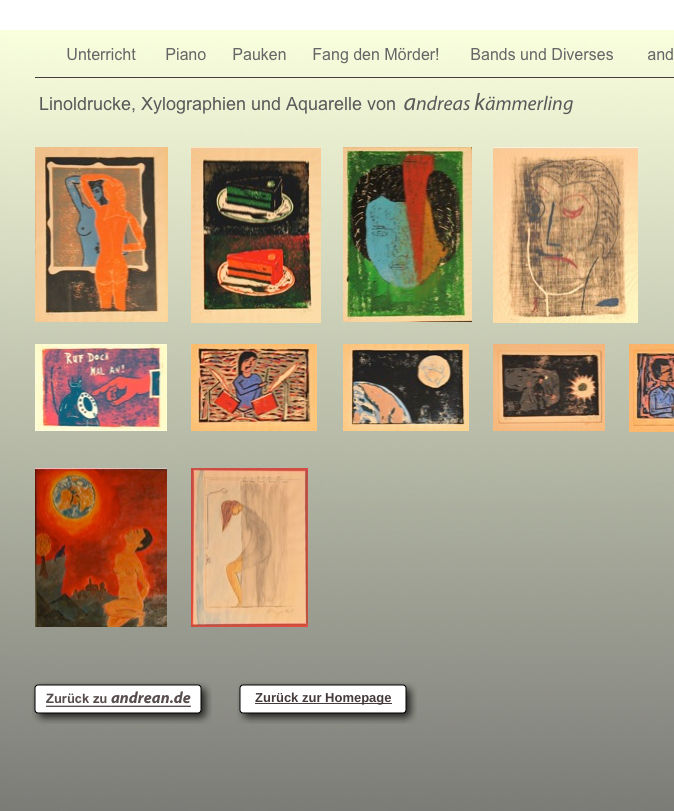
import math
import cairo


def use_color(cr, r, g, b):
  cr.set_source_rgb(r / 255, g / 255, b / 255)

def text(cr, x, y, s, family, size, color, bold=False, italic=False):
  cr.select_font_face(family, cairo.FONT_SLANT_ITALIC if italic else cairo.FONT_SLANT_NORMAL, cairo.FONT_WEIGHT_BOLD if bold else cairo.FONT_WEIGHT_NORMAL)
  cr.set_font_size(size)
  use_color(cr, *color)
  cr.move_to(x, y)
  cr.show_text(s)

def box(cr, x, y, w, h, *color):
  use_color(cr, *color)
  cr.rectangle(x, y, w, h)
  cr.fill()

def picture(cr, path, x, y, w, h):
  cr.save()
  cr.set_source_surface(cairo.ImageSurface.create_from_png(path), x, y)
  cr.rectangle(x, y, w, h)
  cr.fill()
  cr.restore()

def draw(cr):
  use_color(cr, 255, 255, 255)
  cr.paint()
  picture(cr, "img_01.png", 0, 30, 674, 781)
  picture(cr, "img_02.png", 67, 48, 69, 13)
  picture(cr, "img_03.png", 166, 48, 40, 13)
  picture(cr, "img_04.png", 233, 48, 53, 13)
  picture(cr, "img_05.png", 313, 47, 126, 17)
  picture(cr, "img_06.png", 471, 48, 142, 13)
  picture(cr, "img_07.png", 648, 48, 25, 13)
  box(cr, 35, 77, 639, 1, 70, 60, 59)
  picture(cr, "img_08.png", 40, 92, 533, 23)
  picture(cr, "img_09.png", 35, 147, 133, 175)
  picture(cr, "img_10.png", 191, 147, 130, 176)
  picture(cr, "img_11.png", 343, 147, 129, 175)
  picture(cr, "img_12.png", 493, 147, 145, 176)
  picture(cr, "img_13.png", 35, 344, 132, 87)
  picture(cr, "img_14.png", 191, 344, 126, 87)
  picture(cr, "img_15.png", 343, 344, 126, 87)
  picture(cr, "img_16.png", 493, 344, 112, 87)
  picture(cr, "img_17.png", 629, 344, 45, 88)
  picture(cr, "img_18.png", 35, 468, 132, 159)
  picture(cr, "img_19.png", 191, 468, 117, 159)
  picture(cr, "img_20.png", 32, 682, 180, 42)
  picture(cr, "img_21.png", 237, 682, 180, 42)
  picture(cr, "img_22.png", 46, 691, 145, 16)
  box(cr, 255, 703, 137, 1, 70, 59, 60)
  text(cr, 255, 702, "Zurück zur Homepage", "Liberation Sans", 13, (70, 59, 60), bold=True)


surface = cairo.ImageSurface(cairo.FORMAT_RGB24, 674, 811)
cr = cairo.Context(surface)
options = cairo.FontOptions()
options.set_hint_metrics(cairo.HINT_METRICS_OFF)
options.set_hint_style(cairo.HINT_STYLE_NONE)
cr.set_font_options(options)
cr.set_miter_limit(4)
draw(cr)
surface.write_to_png("out.png")
